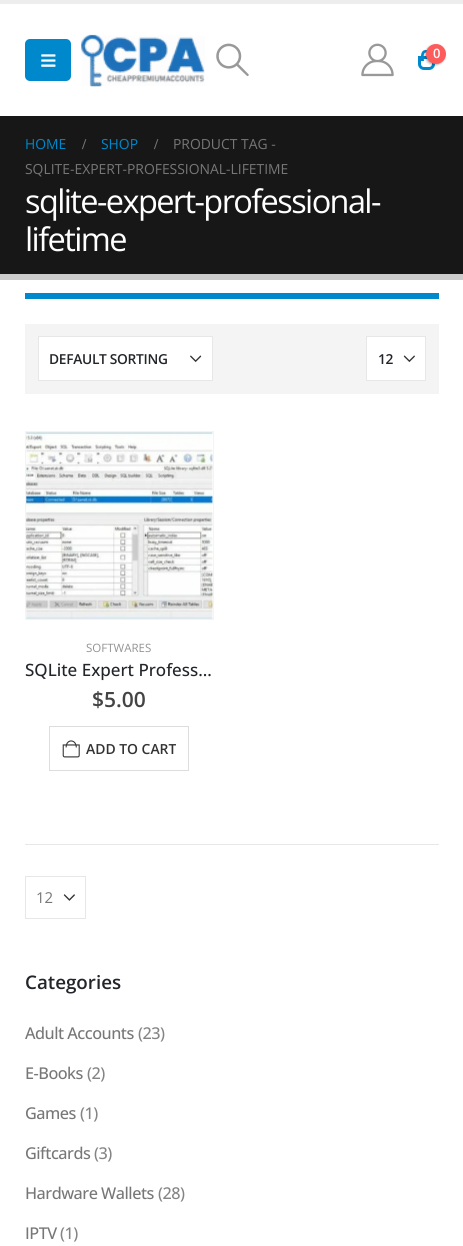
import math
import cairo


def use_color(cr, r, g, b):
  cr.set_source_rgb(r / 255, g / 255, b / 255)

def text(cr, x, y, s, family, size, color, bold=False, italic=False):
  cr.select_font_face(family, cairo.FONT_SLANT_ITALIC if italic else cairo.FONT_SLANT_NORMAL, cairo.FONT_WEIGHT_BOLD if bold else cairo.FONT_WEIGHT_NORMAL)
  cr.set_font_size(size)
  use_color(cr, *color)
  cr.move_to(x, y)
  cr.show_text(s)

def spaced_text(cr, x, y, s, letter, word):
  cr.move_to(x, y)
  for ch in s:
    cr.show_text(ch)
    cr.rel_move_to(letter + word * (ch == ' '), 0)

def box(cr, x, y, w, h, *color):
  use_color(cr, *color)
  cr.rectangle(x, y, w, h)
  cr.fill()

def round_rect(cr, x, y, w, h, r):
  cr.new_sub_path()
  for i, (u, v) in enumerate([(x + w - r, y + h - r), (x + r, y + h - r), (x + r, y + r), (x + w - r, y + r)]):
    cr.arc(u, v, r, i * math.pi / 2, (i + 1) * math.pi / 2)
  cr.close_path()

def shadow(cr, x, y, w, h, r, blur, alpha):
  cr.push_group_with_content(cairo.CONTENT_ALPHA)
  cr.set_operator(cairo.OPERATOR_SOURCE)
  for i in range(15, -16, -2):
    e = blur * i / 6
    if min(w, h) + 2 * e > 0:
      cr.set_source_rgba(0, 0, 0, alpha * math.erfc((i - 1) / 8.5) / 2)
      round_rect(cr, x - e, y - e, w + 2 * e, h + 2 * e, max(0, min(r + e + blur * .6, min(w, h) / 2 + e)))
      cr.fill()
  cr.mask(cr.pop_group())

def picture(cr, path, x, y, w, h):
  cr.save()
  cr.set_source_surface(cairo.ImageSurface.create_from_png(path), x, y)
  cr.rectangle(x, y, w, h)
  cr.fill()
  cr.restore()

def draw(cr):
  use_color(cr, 255, 255, 255)
  cr.paint()
  box(cr, 0, 0, 463, 4, 237, 237, 237)
  use_color(cr, 0, 136, 204)
  round_rect(cr, 25, 39, 46, 42, 5)
  cr.fill()
  picture(cr, "img_01.png", 41, 54, 15, 13)
  picture(cr, "img_02.png", 81, 34, 124, 53)
  picture(cr, "img_03.png", 216, 43, 33, 34)
  picture(cr, "img_04.png", 361, 43, 33, 34)
  cr.new_path()
  cr.move_to(419.5, 57.5)
  cr.line_to(433.5, 57.5)
  cr.line_to(433.5, 64)
  cr.curve_to(433.5, 66.5, 431.5, 68.5, 429, 68.5)
  cr.line_to(424, 68.5)
  cr.curve_to(421.5, 68.5, 419.5, 66.5, 419.5, 64)
  cr.close_path()
  cr.set_line_width(3)
  cr.stroke()
  cr.set_fill_rule(cairo.FILL_RULE_EVEN_ODD)
  cr.new_path()
  cr.move_to(426, 50)
  cr.curve_to(432.5, 50, 431, 57, 431, 61)
  cr.line_to(421, 61)
  cr.curve_to(421, 57, 420, 50, 426, 50)
  cr.close_path()
  cr.move_to(426, 52.5)
  cr.curve_to(430, 52.5, 429, 59, 429, 61)
  cr.line_to(424, 61)
  cr.curve_to(424, 59, 422.5, 52.5, 426, 52.5)
  cr.close_path()
  cr.fill()
  use_color(cr, 0, 0, 0)
  shadow(cr, 425, 45, 20, 20, 10, 1, 0.3)
  use_color(cr, 255, 91, 91)
  cr.arc(436, 54, 10, 0, 2 * math.pi)
  cr.fill()
  box(cr, 0, 116, 463, 158, 23, 23, 23)
  box(cr, 0, 274, 463, 6, 204, 204, 204)
  box(cr, 25, 293, 414, 6, 0, 136, 204)
  box(cr, 25, 324, 414, 70, 244, 244, 244)
  box(cr, 39, 337, 173, 43, 255, 255, 255)
  picture(cr, "img_05.png", 190, 355, 12, 8)
  cr.rectangle(38.5, 336.5, 174, 44)
  use_color(cr, 231, 231, 231)
  cr.set_line_width(1)
  cr.stroke()
  box(cr, 367, 337, 58, 43, 255, 255, 255)
  picture(cr, "img_06.png", 403, 355, 12, 8)
  cr.rectangle(366.5, 336.5, 59, 44)
  use_color(cr, 231, 231, 231)
  cr.stroke()
  cr.rectangle(25.5, 431.5, 188, 188)
  use_color(cr, 244, 244, 244)
  cr.stroke()
  picture(cr, "img_07.png", 26, 432, 187, 187)
  cr.rectangle(49.5, 726.5, 139, 44)
  use_color(cr, 221, 221, 221)
  cr.stroke()
  picture(cr, "img_08.png", 62, 740, 18, 18)
  box(cr, 25, 844, 414, 1, 231, 231, 231)
  picture(cr, "img_09.png", 63, 894, 12, 7)
  cr.rectangle(25.5, 876.5, 60, 42)
  cr.stroke()
  text(cr, 433, 58, "0", "Open Sans SemiBold", 13, (255, 255, 255))
  text(cr, 25, 149, "HOME", "Open Sans", 13.9, (0, 136, 204))
  text(cr, 82, 149, "/", "Liberation Serif", 15, (119, 119, 119), bold=True)
  text(cr, 101, 149, "SHOP", "Open Sans", 13.9, (0, 136, 204))
  text(cr, 154, 149, "/", "Liberation Serif", 15, (119, 119, 119), bold=True)
  text(cr, 173, 149, "PRODUCT TAG -", "Open Sans", 13.9, (119, 119, 119))
  text(cr, 25, 174, "SQLITE-EXPERT-PROFESSIONAL-LIFETIME", "Open Sans", 13.9, (119, 119, 119))
  cr.set_font_size(32.5)
  use_color(cr, 255, 255, 255)
  spaced_text(cr, 25, 213, "sqlite-expert-professional-", -1.6, 0)
  spaced_text(cr, 25, 251, "lifetime", -1.6, 0)
  cr.select_font_face("Open Sans SemiBold")
  cr.set_font_size(13.75)
  use_color(cr, 34, 37, 41)
  spaced_text(cr, 49, 364, "DEFAULT SORTING", -0.3, 0)
  spaced_text(cr, 378, 364, "12", -0.3, 0)
  text(cr, 86, 652, "SOFTWARES", "Open Sans", 11.5, (146, 146, 146))
  text(cr, 25, 676, "SQLite Expert Profess…", "Open Sans Medium", 17, (34, 37, 41))
  text(cr, 92, 707, "$5.00", "Open Sans SemiBold", 21, (68, 68, 68))
  text(cr, 86, 754, "ADD TO CART", "Open Sans SemiBold", 13.9, (51, 51, 51))
  text(cr, 36, 903, "12", "Open Sans", 15, (119, 119, 119))
  text(cr, 25, 989, "Categories", "Open Sans SemiBold", 18.75, (34, 37, 41))
  cr.select_font_face("Open Sans Medium")
  cr.set_font_size(16.25)
  use_color(cr, 119, 119, 119)
  spaced_text(cr, 25, 1039, "Adult Accounts", -0.5, 0)
  use_color(cr, 132, 132, 132)
  spaced_text(cr, 138, 1039, "(23)", -0.5, 0)
  use_color(cr, 119, 119, 119)
  spaced_text(cr, 25, 1079, "E-Books", -0.5, 0)
  use_color(cr, 132, 132, 132)
  spaced_text(cr, 87, 1079, "(2)", -0.5, 0)
  use_color(cr, 119, 119, 119)
  spaced_text(cr, 25, 1119, "Games", -0.5, 0)
  use_color(cr, 132, 132, 132)
  spaced_text(cr, 80, 1119, "(1)", -0.5, 0)
  use_color(cr, 119, 119, 119)
  spaced_text(cr, 25, 1159, "Giftcards", -0.5, 0)
  use_color(cr, 132, 132, 132)
  spaced_text(cr, 94, 1159, "(3)", -0.5, 0)
  use_color(cr, 119, 119, 119)
  spaced_text(cr, 25, 1199, "Hardware Wallets", -0.5, 0)
  use_color(cr, 132, 132, 132)
  spaced_text(cr, 158, 1199, "(28)", -0.5, 0)
  use_color(cr, 119, 119, 119)
  spaced_text(cr, 25, 1239, "IPTV", -0.5, 0)
  use_color(cr, 132, 132, 132)
  spaced_text(cr, 60, 1239, "(1)", -0.5, 0)


surface = cairo.ImageSurface(cairo.FORMAT_RGB24, 463, 1246)
cr = cairo.Context(surface)
options = cairo.FontOptions()
options.set_hint_metrics(cairo.HINT_METRICS_OFF)
options.set_hint_style(cairo.HINT_STYLE_NONE)
cr.set_font_options(options)
cr.set_miter_limit(4)
draw(cr)
surface.write_to_png("out.png")
